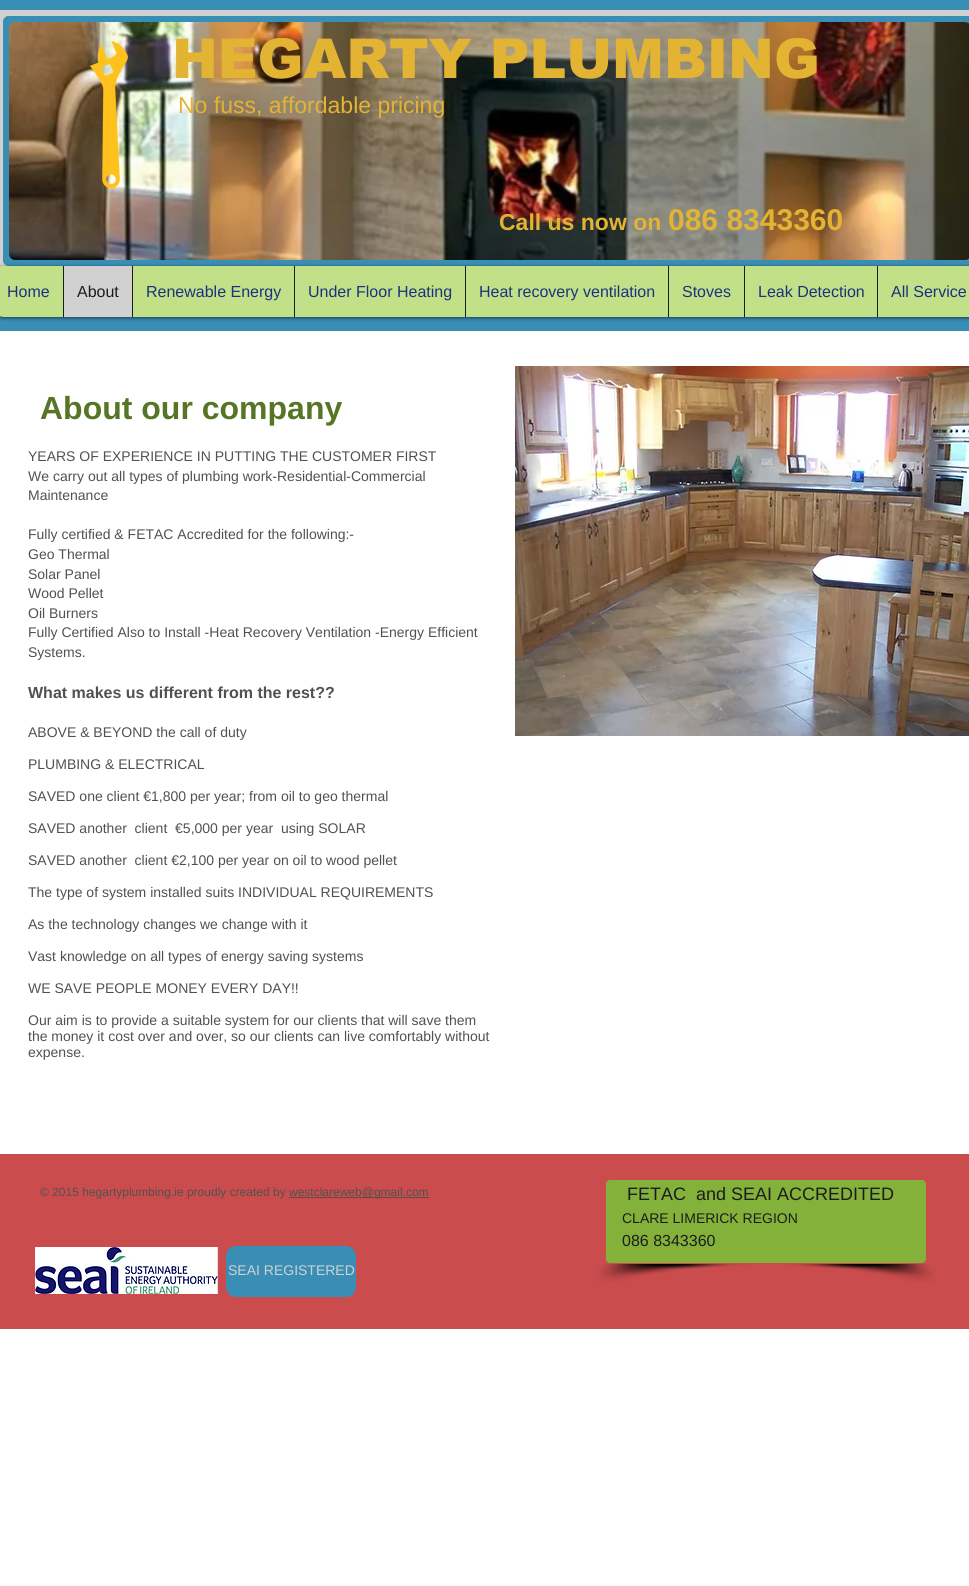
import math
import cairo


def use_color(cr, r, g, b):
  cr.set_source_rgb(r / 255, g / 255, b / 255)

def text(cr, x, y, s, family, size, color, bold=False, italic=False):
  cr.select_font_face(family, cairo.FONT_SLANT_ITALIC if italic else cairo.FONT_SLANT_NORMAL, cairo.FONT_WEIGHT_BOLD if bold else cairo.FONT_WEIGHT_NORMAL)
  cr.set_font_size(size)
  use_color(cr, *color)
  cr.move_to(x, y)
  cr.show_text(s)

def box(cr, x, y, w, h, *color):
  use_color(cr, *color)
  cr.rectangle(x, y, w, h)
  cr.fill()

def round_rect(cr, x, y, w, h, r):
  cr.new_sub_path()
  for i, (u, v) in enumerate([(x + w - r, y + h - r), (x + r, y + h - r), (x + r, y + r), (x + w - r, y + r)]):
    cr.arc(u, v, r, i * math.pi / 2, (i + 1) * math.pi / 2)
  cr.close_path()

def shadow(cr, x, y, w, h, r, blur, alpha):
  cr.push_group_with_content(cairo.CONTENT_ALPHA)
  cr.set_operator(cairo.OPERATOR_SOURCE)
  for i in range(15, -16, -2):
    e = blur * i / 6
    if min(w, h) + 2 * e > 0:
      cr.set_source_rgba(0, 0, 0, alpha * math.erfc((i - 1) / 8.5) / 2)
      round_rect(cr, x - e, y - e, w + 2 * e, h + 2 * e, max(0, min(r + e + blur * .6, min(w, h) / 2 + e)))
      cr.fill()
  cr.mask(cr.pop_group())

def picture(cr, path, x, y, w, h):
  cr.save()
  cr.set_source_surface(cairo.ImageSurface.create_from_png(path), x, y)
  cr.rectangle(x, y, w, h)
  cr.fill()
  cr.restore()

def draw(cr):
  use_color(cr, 255, 255, 255)
  cr.paint()
  box(cr, 0, 0, 969, 10, 57, 142, 181)
  box(cr, 0, 316, 969, 15, 57, 142, 181)
  box(cr, 0, 10, 969, 257, 209, 209, 209)
  use_color(cr, 57, 142, 181)
  round_rect(cr, 3, 16, 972, 250, 6)
  cr.fill()
  picture(cr, "img_01.png", 9, 22, 960, 238)
  round_rect(cr, 6, 19, 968, 244, 3)
  cr.set_line_width(6)
  cr.stroke()
  picture(cr, "img_02.png", 90, 41, 38, 147)
  use_color(cr, 0, 0, 0)
  shadow(cr, -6, 267, 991, 51, 10, 2, 0.6)
  use_color(cr, 193, 224, 136)
  round_rect(cr, -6, 266, 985, 51, 10)
  cr.fill()
  box(cr, 64, 266, 68, 51, 209, 209, 209)
  box(cr, 63, 266, 1, 51, 28, 28, 28)
  box(cr, 132, 266, 1, 51, 28, 28, 28)
  box(cr, 294, 266, 1, 51, 28, 28, 28)
  box(cr, 465, 266, 1, 51, 28, 28, 28)
  box(cr, 668, 266, 1, 51, 28, 28, 28)
  box(cr, 744, 266, 1, 51, 28, 28, 28)
  box(cr, 877, 266, 1, 51, 28, 28, 28)
  picture(cr, "img_03.png", 515, 366, 454, 370)
  box(cr, 0, 1154, 969, 175, 202, 76, 77)
  box(cr, 289, 1197, 140, 1, 81, 81, 81)
  use_color(cr, 131, 177, 58)
  round_rect(cr, 605.5, 1179.5, 321, 84, 4.5)
  cr.fill_preserve()
  use_color(cr, 202, 76, 77)
  cr.set_line_width(1)
  cr.stroke()
  picture(cr, "img_04.png", 596, 1264, 154, 18)
  picture(cr, "img_05.png", 782, 1264, 154, 18)
  picture(cr, "img_06.png", 35, 1247, 183, 47)
  use_color(cr, 57, 142, 181)
  round_rect(cr, 226, 1246, 130, 51, 10)
  cr.fill()
  text(cr, 172, 78, "HEGARTY PLUMBING", "arial Black", 55, (227, 179, 51))
  text(cr, 178, 113, "No fuss, affordable pricing", "Liberation Sans", 23, (227, 179, 51))
  text(cr, 499, 230, "Call us now on", "Liberation Sans", 23, (227, 179, 51), bold=True)
  text(cr, 668, 230, "086 8343360", "Liberation Sans", 30, (227, 179, 51), bold=True)
  text(cr, 7, 297, "Home", "Liberation Sans", 16, (28, 50, 127))
  text(cr, 77, 297, "About", "Liberation Sans", 16, (28, 28, 28))
  text(cr, 146, 297, "Renewable Energy", "Liberation Sans", 16, (28, 50, 127))
  text(cr, 308, 297, "Under Floor Heating", "Liberation Sans", 16, (28, 50, 127))
  text(cr, 479, 297, "Heat recovery ventilation", "Liberation Sans", 16, (28, 50, 127))
  text(cr, 682, 297, "Stoves", "Liberation Sans", 16, (28, 50, 127))
  text(cr, 758, 297, "Leak Detection", "Liberation Sans", 16, (28, 50, 127))
  text(cr, 891, 297, "All Service", "Liberation Sans", 16, (28, 50, 127))
  text(cr, 40, 419, "About our company", "Liberation Sans", 32, (87, 117, 38), bold=True)
  text(cr, 28, 461, "YEARS OF EXPERIENCE IN PUTTING THE CUSTOMER FIRST", "Liberation Sans", 14, (81, 81, 81))
  text(cr, 28, 481, "We carry out all types of plumbing work-Residential-Commercial", "Liberation Sans", 14, (81, 81, 81))
  text(cr, 28, 500, "Maintenance", "Liberation Sans", 14, (81, 81, 81))
  text(cr, 28, 539, "Fully certified & FETAC Accredited for the following:-", "Liberation Sans", 14, (81, 81, 81))
  text(cr, 28, 559, "Geo Thermal", "Liberation Sans", 14, (81, 81, 81))
  text(cr, 28, 579, "Solar Panel", "Liberation Sans", 14, (81, 81, 81))
  text(cr, 28, 598, "Wood Pellet", "Liberation Sans", 14, (81, 81, 81))
  text(cr, 28, 618, "Oil Burners", "Liberation Sans", 14, (81, 81, 81))
  text(cr, 28, 637, "Fully Certified Also to Install -Heat Recovery Ventilation -Energy Efficient", "Liberation Sans", 14, (81, 81, 81))
  text(cr, 28, 657, "Systems.", "Liberation Sans", 14, (81, 81, 81))
  text(cr, 28, 698, "What makes us different from the rest??", "Liberation Sans", 16, (81, 81, 81), bold=True)
  text(cr, 28, 737, "ABOVE & BEYOND the call of duty", "Liberation Sans", 14, (81, 81, 81))
  text(cr, 28, 769, "PLUMBING & ELECTRICAL", "Liberation Sans", 14, (81, 81, 81))
  text(cr, 28, 801, "SAVED one client €1,800 per year; from oil to geo thermal", "Liberation Sans", 14, (81, 81, 81))
  text(cr, 28, 833, "SAVED another  client  €5,000 per year  using SOLAR", "Liberation Sans", 14, (81, 81, 81))
  text(cr, 28, 865, "SAVED another  client €2,100 per year on oil to wood pellet", "Liberation Sans", 14, (81, 81, 81))
  text(cr, 28, 897, "The type of system installed suits INDIVIDUAL REQUIREMENTS", "Liberation Sans", 14, (81, 81, 81))
  text(cr, 28, 929, "As the technology changes we change with it", "Liberation Sans", 14, (81, 81, 81))
  text(cr, 28, 961, "Vast knowledge on all types of energy saving systems", "Liberation Sans", 14, (81, 81, 81))
  text(cr, 28, 993, "WE SAVE PEOPLE MONEY EVERY DAY!!", "Liberation Sans", 14, (81, 81, 81))
  text(cr, 28, 1025, "Our aim is to provide a suitable system for our clients that will save them", "Liberation Sans", 14, (81, 81, 81))
  text(cr, 28, 1041, "the money it cost over and over, so our clients can live comfortably without", "Liberation Sans", 14, (81, 81, 81))
  text(cr, 28, 1057, "expense.", "Liberation Sans", 14, (81, 81, 81))
  text(cr, 40, 1196, "© 2015 hegartyplumbing.ie proudly created by", "Liberation Sans", 12, (81, 81, 81))
  text(cr, 289, 1196, "westclareweb@gmail.com", "Liberation Sans", 12, (81, 81, 81))
  text(cr, 627, 1200, "FETAC  and SEAI ACCREDITED", "Liberation Sans", 18, (28, 28, 28))
  text(cr, 622, 1223, "CLARE LIMERICK REGION", "Liberation Sans", 14, (28, 28, 28))
  text(cr, 622, 1246, "086 8343360", "Liberation Sans", 16, (28, 28, 28))
  text(cr, 228, 1275, "SEAI REGISTERED", "Liberation Sans", 14, (209, 209, 209))


surface = cairo.ImageSurface(cairo.FORMAT_RGB24, 969, 1586)
cr = cairo.Context(surface)
options = cairo.FontOptions()
options.set_hint_metrics(cairo.HINT_METRICS_OFF)
options.set_hint_style(cairo.HINT_STYLE_NONE)
cr.set_font_options(options)
cr.set_miter_limit(4)
draw(cr)
surface.write_to_png("out.png")
